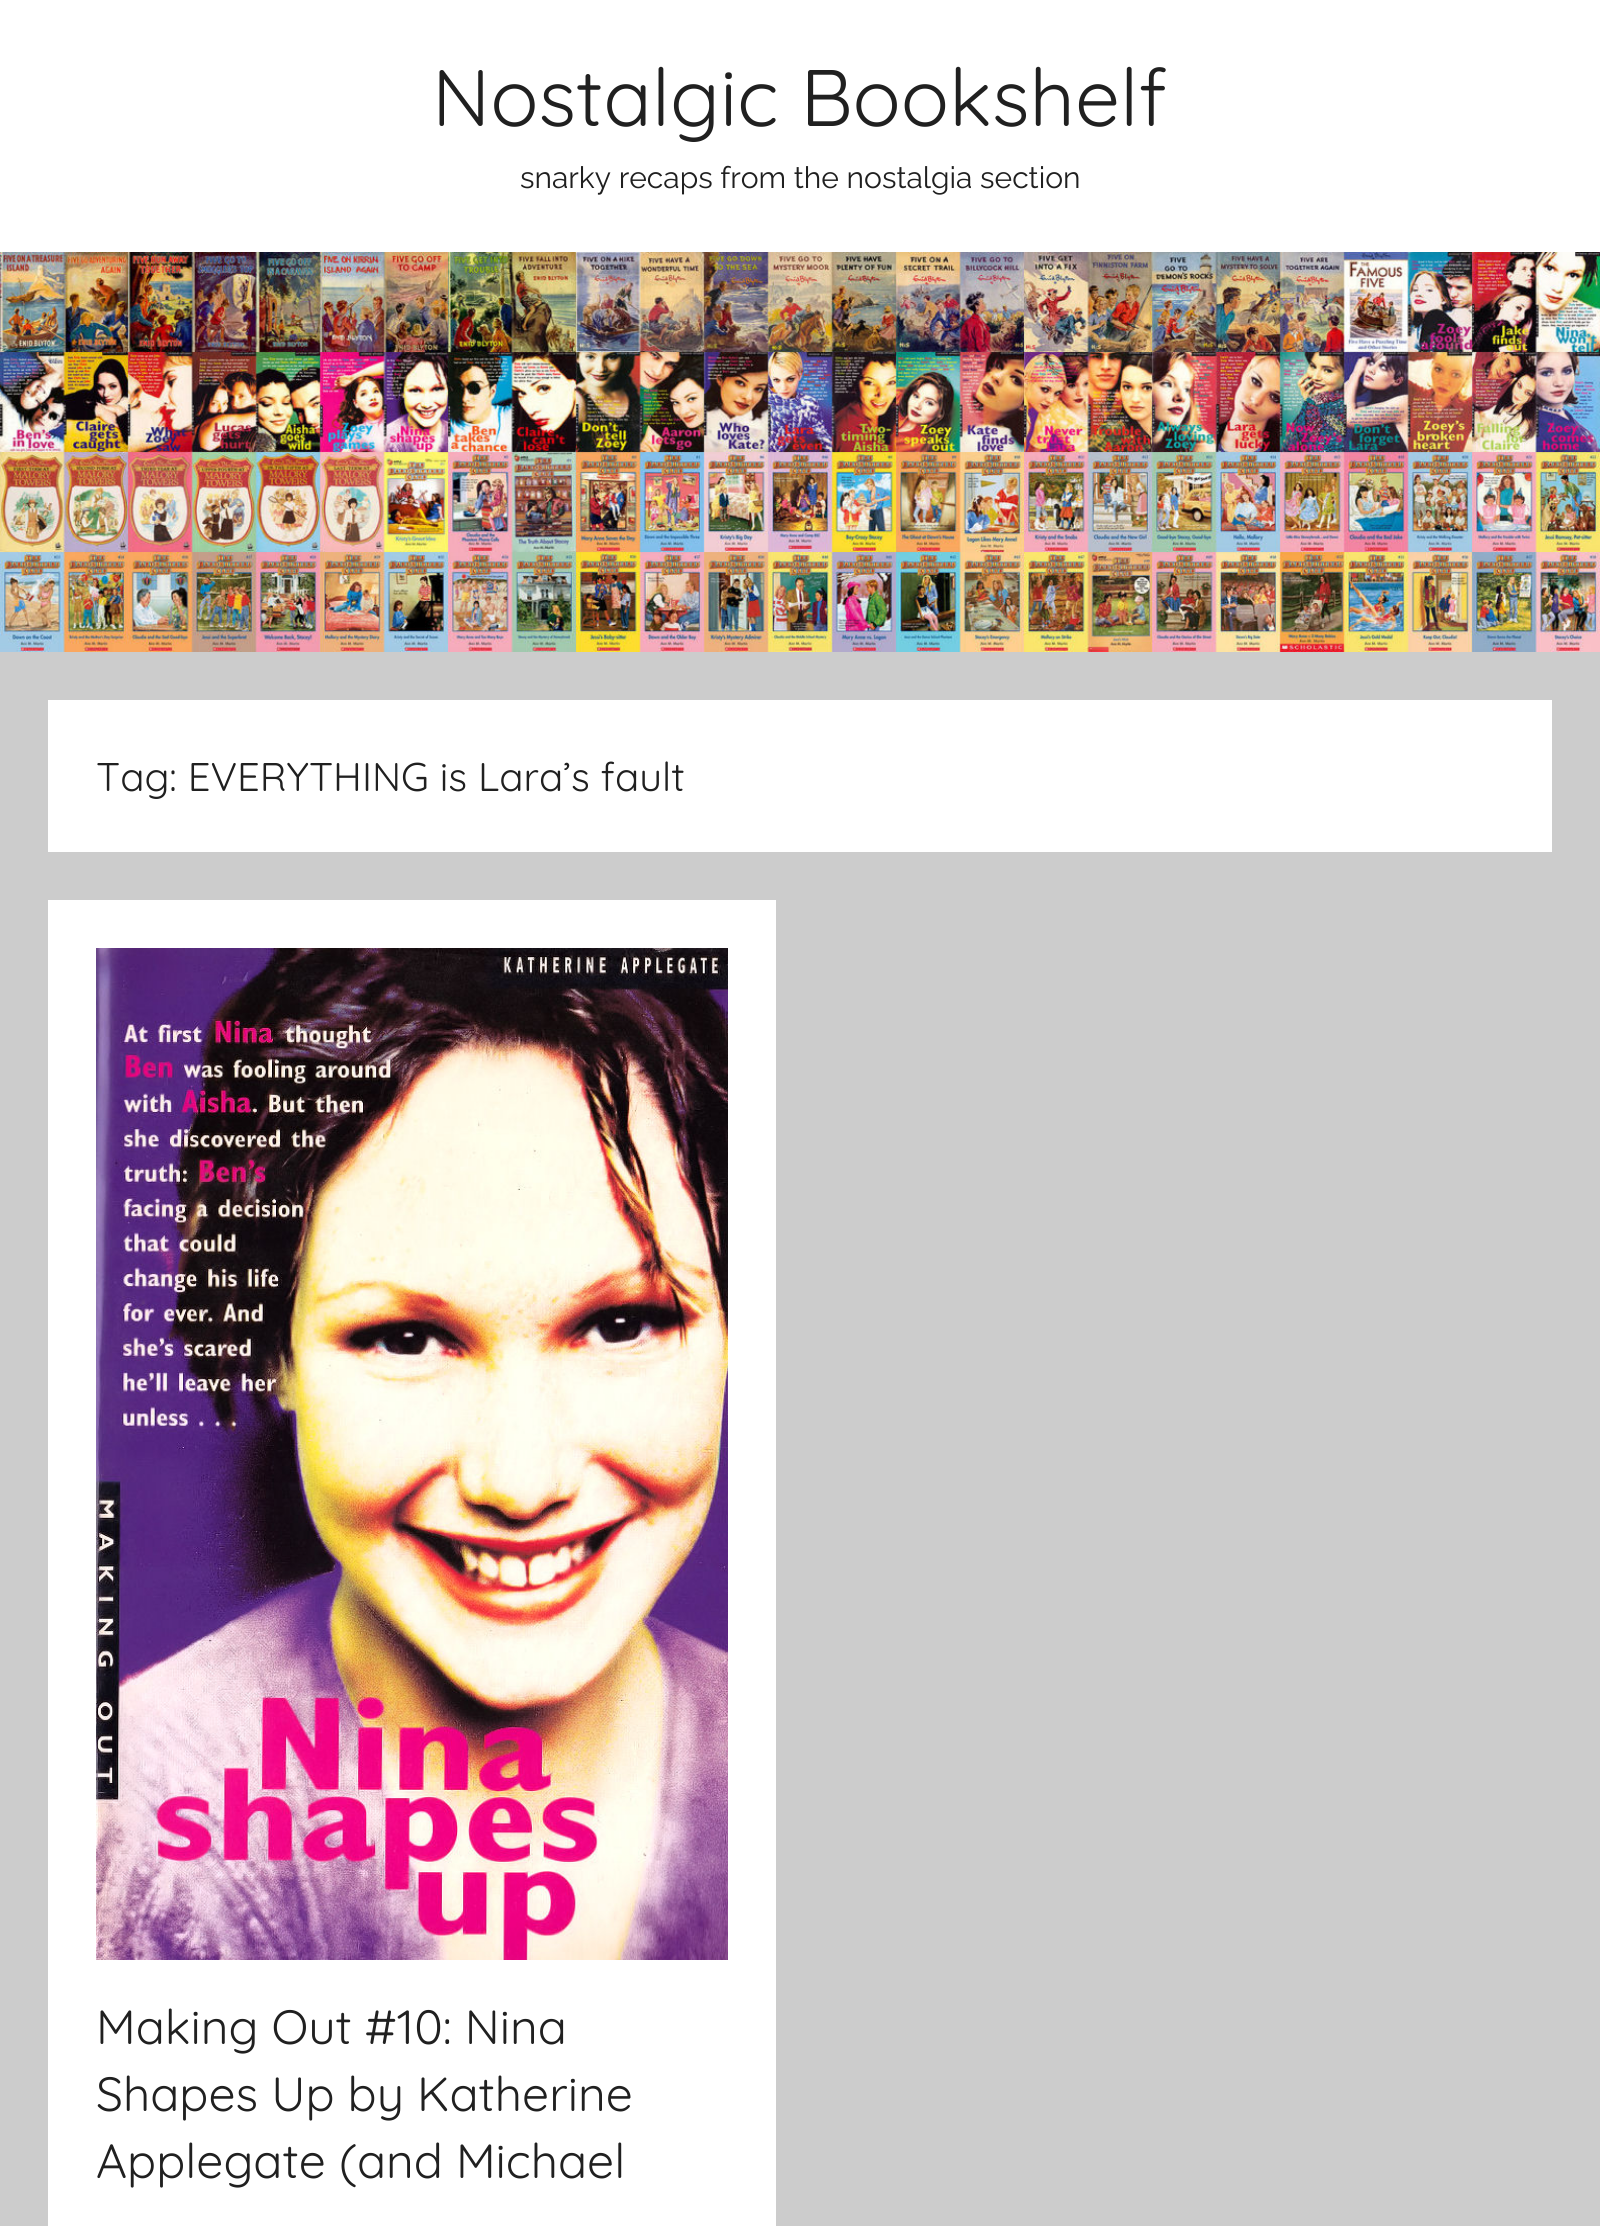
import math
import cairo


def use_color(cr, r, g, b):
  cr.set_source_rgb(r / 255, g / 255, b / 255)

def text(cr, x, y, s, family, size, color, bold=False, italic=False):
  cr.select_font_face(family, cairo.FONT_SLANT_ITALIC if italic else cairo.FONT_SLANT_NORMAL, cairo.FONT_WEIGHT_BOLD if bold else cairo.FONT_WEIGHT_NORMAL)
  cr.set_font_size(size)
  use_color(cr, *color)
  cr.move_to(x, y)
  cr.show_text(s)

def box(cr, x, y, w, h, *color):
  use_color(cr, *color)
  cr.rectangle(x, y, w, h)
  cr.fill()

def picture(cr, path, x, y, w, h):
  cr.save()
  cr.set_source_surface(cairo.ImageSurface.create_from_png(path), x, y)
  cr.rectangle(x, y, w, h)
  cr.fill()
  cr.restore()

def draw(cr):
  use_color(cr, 204, 204, 204)
  cr.paint()
  box(cr, 0, 0, 1600, 252, 255, 255, 255)
  picture(cr, "img_01.png", 0, 252, 1600, 400)
  box(cr, 48, 700, 1504, 152, 255, 255, 255)
  box(cr, 48, 900, 728, 1326, 255, 255, 255)
  picture(cr, "img_02.png", 96, 948, 632, 1012)
  text(cr, 432, 126, "Nostalgic Bookshelf", "Quicksand", 80, (32, 32, 32))
  text(cr, 520, 188, "snarky recaps from the nostalgia section", "Raleway", 30, (32, 32, 32))
  text(cr, 96, 791, "Tag: EVERYTHING is Lara’s fault", "Quicksand", 40, (32, 32, 32))
  text(cr, 96, 2044, "Making Out #10: Nina", "Quicksand", 48, (32, 32, 32))
  text(cr, 96, 2111, "Shapes Up by Katherine", "Quicksand", 48, (32, 32, 32))
  text(cr, 96, 2178, "Applegate (and Michael", "Quicksand", 48, (32, 32, 32))


surface = cairo.ImageSurface(cairo.FORMAT_RGB24, 1600, 2226)
cr = cairo.Context(surface)
options = cairo.FontOptions()
options.set_hint_metrics(cairo.HINT_METRICS_OFF)
options.set_hint_style(cairo.HINT_STYLE_NONE)
cr.set_font_options(options)
cr.set_miter_limit(4)
draw(cr)
surface.write_to_png("out.png")
